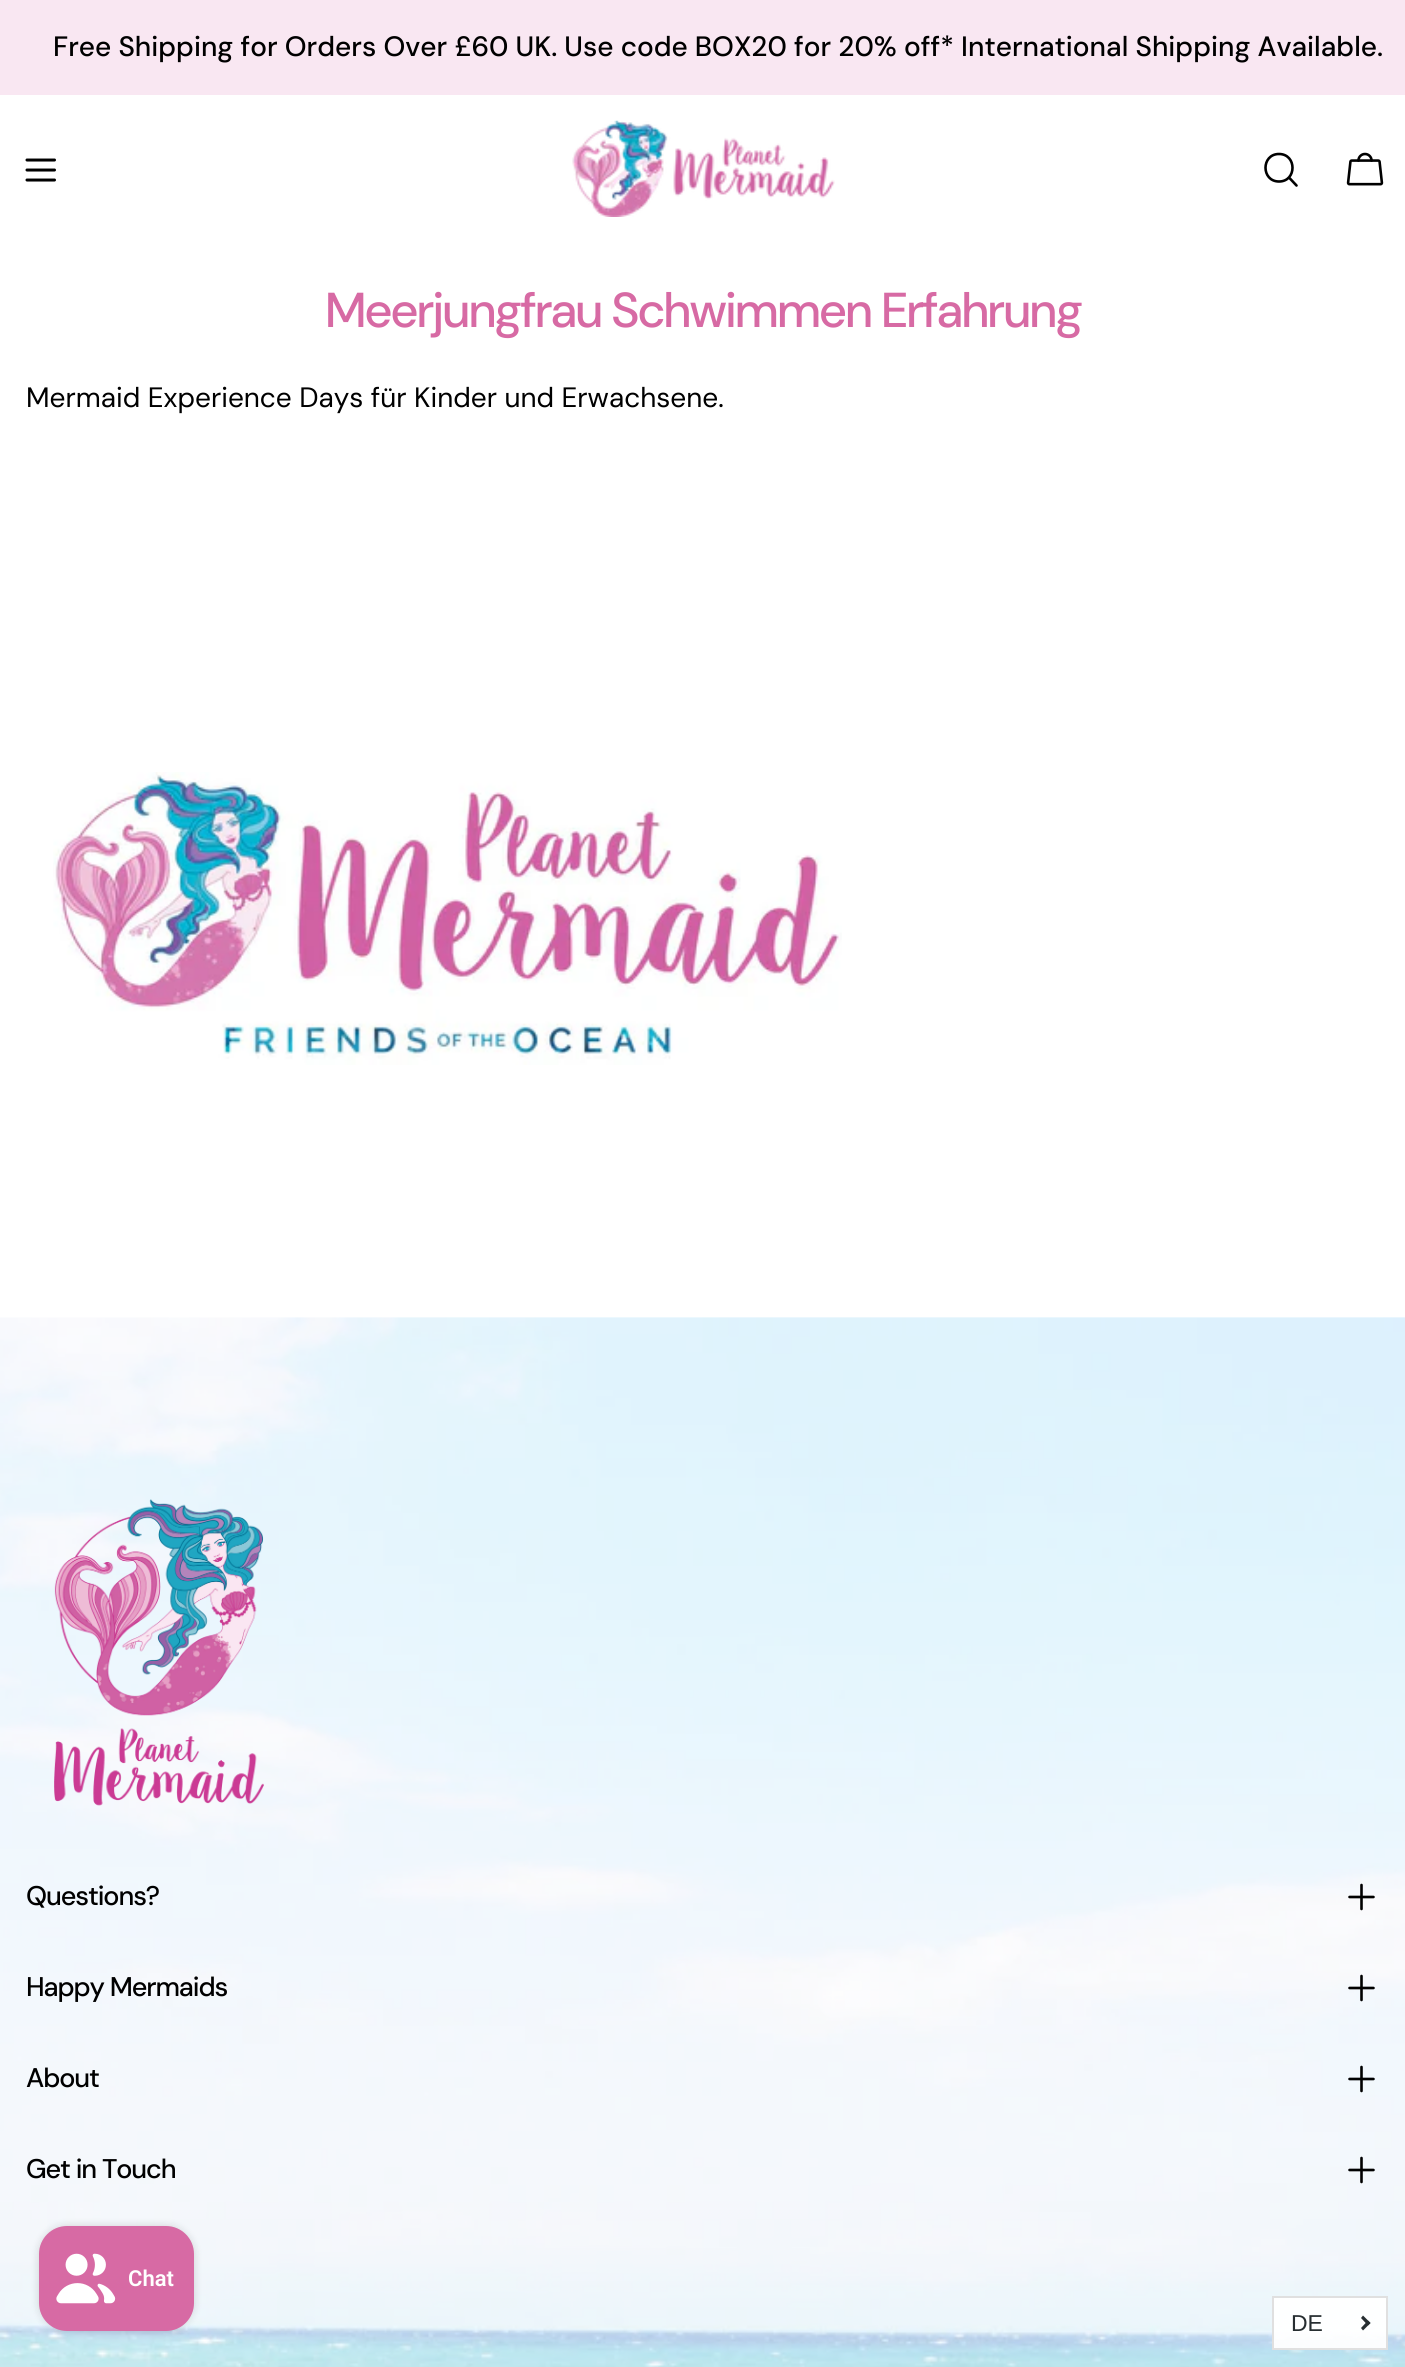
import math
import cairo


def use_color(cr, r, g, b):
  cr.set_source_rgb(r / 255, g / 255, b / 255)

def text(cr, x, y, s, family, size, color, bold=False, italic=False):
  cr.select_font_face(family, cairo.FONT_SLANT_ITALIC if italic else cairo.FONT_SLANT_NORMAL, cairo.FONT_WEIGHT_BOLD if bold else cairo.FONT_WEIGHT_NORMAL)
  cr.set_font_size(size)
  use_color(cr, *color)
  cr.move_to(x, y)
  cr.show_text(s)

def spaced_text(cr, x, y, s, letter, word):
  cr.move_to(x, y)
  for ch in s:
    cr.show_text(ch)
    cr.rel_move_to(letter + word * (ch == ' '), 0)

def box(cr, x, y, w, h, *color):
  use_color(cr, *color)
  cr.rectangle(x, y, w, h)
  cr.fill()

def round_rect(cr, x, y, w, h, r):
  cr.new_sub_path()
  for i, (u, v) in enumerate([(x + w - r, y + h - r), (x + r, y + h - r), (x + r, y + r), (x + w - r, y + r)]):
    cr.arc(u, v, r, i * math.pi / 2, (i + 1) * math.pi / 2)
  cr.close_path()

def shadow(cr, x, y, w, h, r, blur, alpha):
  cr.push_group_with_content(cairo.CONTENT_ALPHA)
  cr.set_operator(cairo.OPERATOR_SOURCE)
  for i in range(15, -16, -2):
    e = blur * i / 6
    if min(w, h) + 2 * e > 0:
      cr.set_source_rgba(0, 0, 0, alpha * math.erfc((i - 1) / 8.5) / 2)
      round_rect(cr, x - e, y - e, w + 2 * e, h + 2 * e, max(0, min(r + e + blur * .6, min(w, h) / 2 + e)))
      cr.fill()
  cr.mask(cr.pop_group())

def picture(cr, path, x, y, w, h):
  cr.save()
  cr.set_source_surface(cairo.ImageSurface.create_from_png(path), x, y)
  cr.rectangle(x, y, w, h)
  cr.fill()
  cr.restore()

def draw(cr):
  use_color(cr, 255, 255, 255)
  cr.paint()
  box(cr, 0, 0, 1405, 95, 249, 231, 242)
  cr.new_path()
  cr.move_to(27, 170)
  cr.line_to(54.5, 170)
  cr.move_to(27, 160)
  cr.line_to(54.5, 160)
  cr.move_to(27, 180)
  cr.line_to(54.5, 180)
  use_color(cr, 0, 0, 0)
  cr.set_line_width(3)
  cr.set_line_cap(cairo.LINE_CAP_ROUND)
  cr.set_line_join(cairo.LINE_JOIN_ROUND)
  cr.stroke()
  picture(cr, "img_01.png", 572, 120, 263, 97)
  cr.new_path()
  cr.move_to(1279, 181.5)
  cr.curve_to(1297, 181.5, 1297, 154, 1279, 154)
  cr.curve_to(1261, 154, 1261, 181.5, 1279, 181.5)
  cr.close_path()
  cr.move_to(1289, 177.5)
  cr.line_to(1296.5, 185.5)
  cr.set_line_width(2.6)
  cr.stroke()
  picture(cr, "img_02.png", 1346, 152, 38, 34)
  picture(cr, "img_03.png", 53, 772, 789, 293)
  picture(cr, "img_04.png", 0, 1317, 1405, 1050)
  picture(cr, "img_05.png", 54, 1499, 210, 307)
  cr.new_path()
  cr.move_to(1349.5, 1897)
  cr.line_to(1373.5, 1897)
  cr.move_to(1361.5, 1885)
  cr.line_to(1361.5, 1909)
  cr.stroke()
  cr.new_path()
  cr.move_to(1349.5, 1988)
  cr.line_to(1373.5, 1988)
  cr.move_to(1361.5, 1976)
  cr.line_to(1361.5, 2000)
  cr.stroke()
  cr.new_path()
  cr.move_to(1349.5, 2079)
  cr.line_to(1373.5, 2079)
  cr.move_to(1361.5, 2067)
  cr.line_to(1361.5, 2091)
  cr.stroke()
  cr.new_path()
  cr.move_to(1349.5, 2170)
  cr.line_to(1373.5, 2170)
  cr.move_to(1361.5, 2158)
  cr.line_to(1361.5, 2182)
  cr.stroke()
  use_color(cr, 0, 0, 0)
  shadow(cr, 39, 2226, 155, 105, 28, 4.5, 0.15)
  use_color(cr, 215, 106, 164)
  round_rect(cr, 39, 2226, 155, 105, 28)
  cr.fill()
  picture(cr, "img_06.png", 56, 2253, 60, 51)
  cr.set_source_rgba(1, 1, 1, 0.95)
  cr.rectangle(1273, 2297, 114, 52)
  cr.fill_preserve()
  use_color(cr, 224, 224, 224)
  cr.set_line_width(2)
  cr.set_line_cap(cairo.LINE_CAP_BUTT)
  cr.set_line_join(cairo.LINE_JOIN_MITER)
  cr.stroke()
  use_color(cr, 39, 46, 49)
  cr.new_path()
  cr.move_to(1363, 2315.5)
  cr.line_to(1370.5, 2323)
  cr.line_to(1368, 2325.5)
  cr.line_to(1361, 2318)
  cr.close_path()
  cr.fill()
  cr.new_path()
  cr.move_to(1368, 2320.5)
  cr.line_to(1370.5, 2323)
  cr.line_to(1363, 2330.5)
  cr.line_to(1361, 2328)
  cr.close_path()
  cr.fill()
  text(cr, 53, 56, "Free Shipping for Orders Over £60 UK. Use code BOX20 for 20% off* International Shipping Available.", "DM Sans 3 Medium", 28, (0, 0, 0))
  cr.select_font_face("DM Sans Medium")
  cr.set_font_size(49)
  use_color(cr, 215, 106, 164)
  spaced_text(cr, 325, 327, "Meerjungfrau Schwimmen Erfahrung", -1.95, 0)
  text(cr, 26, 407, "Mermaid Experience Days für Kinder und Erwachsene.", "DM Sans", 28, (0, 0, 0))
  cr.select_font_face("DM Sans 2 Medium")
  cr.set_font_size(27)
  spaced_text(cr, 26, 1905, "Questions?", -1.1, 0)
  spaced_text(cr, 26, 1996, "Happy Mermaids", -1.1, 0)
  spaced_text(cr, 26, 2087, "About", -1.1, 0)
  spaced_text(cr, 26, 2178, "Get in Touch", -1.1, 0)
  text(cr, 128, 2286, "Chat", "Roboto SemiBold", 22, (255, 255, 255))
  text(cr, 1291, 2331, "DE", "Liberation Sans", 23, (39, 46, 49))


surface = cairo.ImageSurface(cairo.FORMAT_RGB24, 1405, 2367)
cr = cairo.Context(surface)
options = cairo.FontOptions()
options.set_hint_metrics(cairo.HINT_METRICS_OFF)
options.set_hint_style(cairo.HINT_STYLE_NONE)
cr.set_font_options(options)
cr.set_miter_limit(4)
draw(cr)
surface.write_to_png("out.png")
